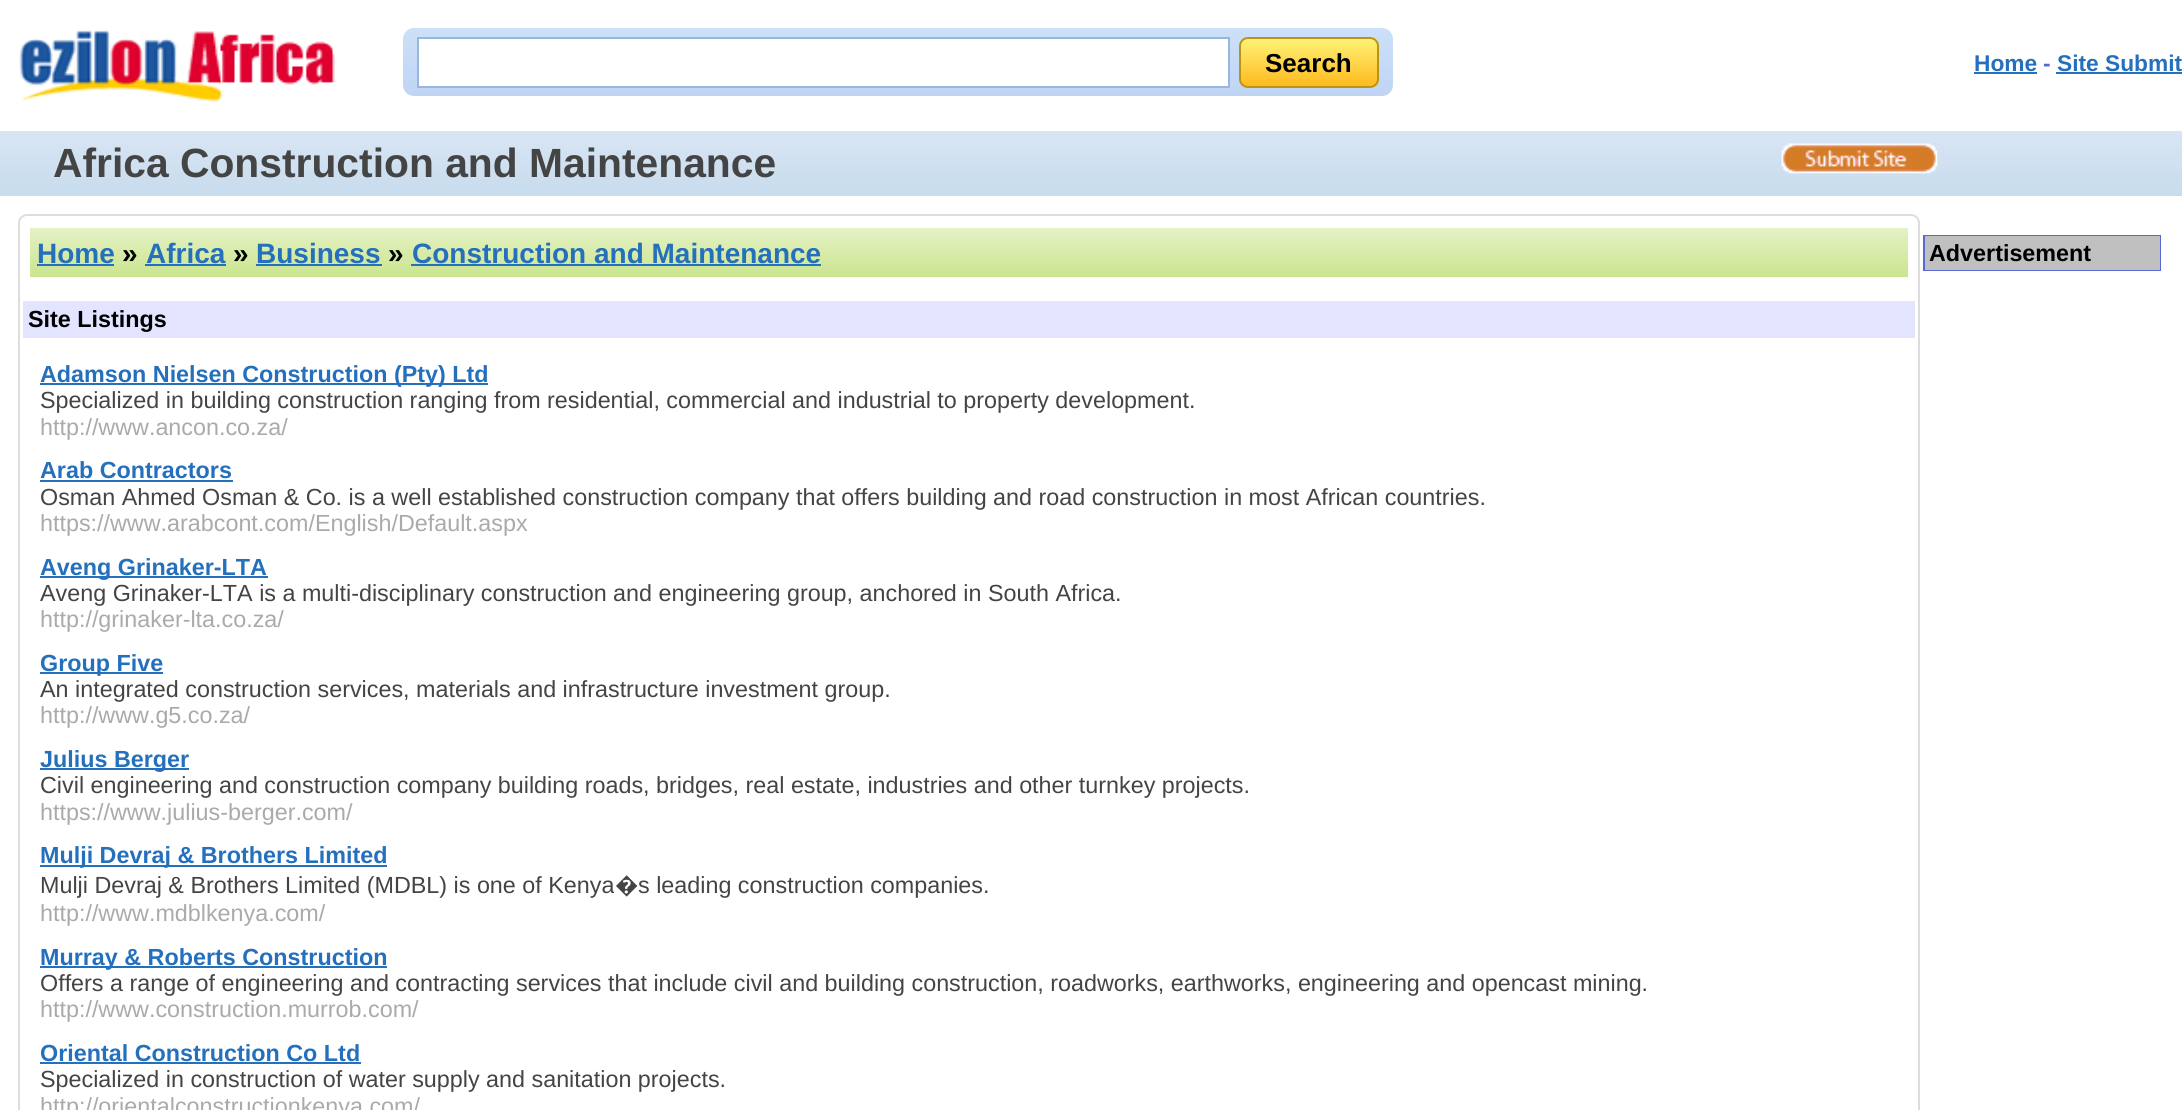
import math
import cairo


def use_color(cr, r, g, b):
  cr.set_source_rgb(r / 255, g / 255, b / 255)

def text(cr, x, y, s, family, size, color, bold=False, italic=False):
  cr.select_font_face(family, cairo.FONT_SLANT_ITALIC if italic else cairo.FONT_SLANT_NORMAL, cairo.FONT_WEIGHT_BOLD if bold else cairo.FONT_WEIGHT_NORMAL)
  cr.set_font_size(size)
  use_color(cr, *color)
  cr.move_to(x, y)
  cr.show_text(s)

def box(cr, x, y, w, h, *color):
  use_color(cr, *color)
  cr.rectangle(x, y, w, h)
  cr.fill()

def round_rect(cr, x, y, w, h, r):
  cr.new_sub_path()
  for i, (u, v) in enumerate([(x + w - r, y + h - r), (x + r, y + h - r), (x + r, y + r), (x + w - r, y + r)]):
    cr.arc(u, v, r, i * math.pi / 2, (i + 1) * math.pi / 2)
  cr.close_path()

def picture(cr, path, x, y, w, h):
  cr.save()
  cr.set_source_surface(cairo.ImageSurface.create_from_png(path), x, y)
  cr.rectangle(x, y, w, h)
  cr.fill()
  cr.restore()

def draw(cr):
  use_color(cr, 255, 255, 255)
  cr.paint()
  picture(cr, "img_01.png", 19, 29, 316, 73)
  gradient = cairo.LinearGradient(898, 28, 898, 96)
  gradient.add_color_stop_rgba(0, 0.804, 0.878, 0.976, 1)
  gradient.add_color_stop_rgba(1, 0.749, 0.835, 0.953, 1)
  cr.set_source(gradient)
  round_rect(cr, 403, 28, 990, 68, 11)
  cr.fill()
  use_color(cr, 255, 255, 255)
  cr.rectangle(418, 38, 811, 49)
  cr.fill_preserve()
  use_color(cr, 152, 183, 224)
  cr.stroke()
  cr.save()
  round_rect(cr, 1239, 37, 140, 51, 9)
  cr.clip()
  gradient = cairo.LinearGradient(1309, 38, 1309, 86)
  gradient.add_color_stop_rgba(0, 0.996, 0.953, 0.471, 1)
  gradient.add_color_stop_rgba(1, 1, 0.729, 0.125, 1)
  cr.set_source(gradient)
  cr.rectangle(1239, 39, 140, 47)
  cr.fill()
  cr.restore()
  round_rect(cr, 1240, 38, 138, 49, 8)
  use_color(cr, 186, 149, 21)
  cr.stroke()
  box(cr, 1974, 72, 63, 2, 36, 112, 189)
  box(cr, 2056, 72, 126, 2, 36, 112, 189)
  gradient = cairo.LinearGradient(1091, 131, 1091, 196)
  gradient.add_color_stop_rgba(0, 0.851, 0.898, 0.957, 1)
  gradient.add_color_stop_rgba(1, 0.78, 0.863, 0.929, 1)
  cr.set_source(gradient)
  cr.rectangle(0, 131, 2182, 65)
  cr.fill()
  picture(cr, "img_02.png", 1781, 143, 157, 31)
  round_rect(cr, 19, 215, 1900, 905, 8)
  use_color(cr, 221, 221, 221)
  cr.stroke()
  gradient = cairo.LinearGradient(969, 227, 969, 277)
  gradient.add_color_stop_rgba(0, 0.898, 0.949, 0.776, 1)
  gradient.add_color_stop_rgba(1, 0.796, 0.898, 0.557, 1)
  cr.set_source(gradient)
  cr.rectangle(30, 228, 1878, 49)
  cr.fill()
  box(cr, 37, 264, 77, 2, 36, 112, 189)
  box(cr, 145, 264, 81, 2, 36, 112, 189)
  box(cr, 256, 264, 126, 2, 36, 112, 189)
  box(cr, 411, 264, 410, 2, 36, 112, 189)
  box(cr, 23, 301, 1892, 37, 227, 228, 255)
  box(cr, 40, 383, 448, 2, 36, 112, 189)
  box(cr, 40, 480, 193, 2, 36, 112, 189)
  box(cr, 40, 576, 228, 2, 36, 112, 189)
  box(cr, 40, 672, 123, 2, 36, 112, 189)
  box(cr, 40, 768, 149, 2, 36, 112, 189)
  box(cr, 40, 865, 347, 2, 36, 112, 189)
  box(cr, 40, 966, 347, 2, 36, 112, 189)
  box(cr, 40, 1062, 321, 2, 36, 112, 189)
  cr.rectangle(1924, 236, 236, 34)
  use_color(cr, 88, 104, 208)
  cr.stroke()
  box(cr, 1925, 236, 235, 34, 192, 192, 192)
  text(cr, 1265, 72, "Search", "Liberation Sans", 26, (0, 0, 0), bold=True)
  text(cr, 1974, 71, "Home", "Liberation Sans", 22.75, (36, 112, 189), bold=True)
  text(cr, 2043, 71, "-", "Liberation Sans", 22.75, (88, 104, 208), bold=True)
  text(cr, 2057, 71, "Site Submit", "Liberation Sans", 22.75, (36, 112, 189), bold=True)
  text(cr, 53, 177, "Africa Construction and Maintenance", "Liberation Sans", 40.8, (68, 68, 68), bold=True)
  text(cr, 37, 263, "Home", "Liberation Sans", 28, (36, 112, 189), bold=True)
  text(cr, 122, 263, "»", "Liberation Sans", 28, (0, 0, 0), bold=True)
  text(cr, 146, 263, "Africa", "Liberation Sans", 28, (36, 112, 189), bold=True)
  text(cr, 233, 263, "»", "Liberation Sans", 28, (0, 0, 0), bold=True)
  text(cr, 256, 263, "Business", "Liberation Sans", 28, (36, 112, 189), bold=True)
  text(cr, 388, 263, "»", "Liberation Sans", 28, (0, 0, 0), bold=True)
  text(cr, 412, 263, "Construction and Maintenance", "Liberation Sans", 28, (36, 112, 189), bold=True)
  text(cr, 28, 327, "Site Listings", "Liberation Sans", 23.33, (0, 0, 0), bold=True)
  text(cr, 40, 382, "Adamson Nielsen Construction (Pty) Ltd", "Liberation Sans", 23.33, (36, 112, 189), bold=True)
  text(cr, 40, 408, "Specialized in building construction ranging from residential, commercial and industrial to property development.", "Liberation Sans", 23.33, (68, 68, 68))
  text(cr, 40, 435, "http://www.ancon.co.za/", "Liberation Sans", 23.33, (170, 170, 170))
  text(cr, 40, 478, "Arab Contractors", "Liberation Sans", 23.33, (36, 112, 189), bold=True)
  text(cr, 40, 505, "Osman Ahmed Osman & Co. is a well established construction company that offers building and road construction in most African countries.", "Liberation Sans", 23.33, (68, 68, 68))
  text(cr, 40, 531, "https://www.arabcont.com/English/Default.aspx", "Liberation Sans", 23.33, (170, 170, 170))
  text(cr, 40, 575, "Aveng Grinaker-LTA", "Liberation Sans", 23.33, (36, 112, 189), bold=True)
  text(cr, 40, 601, "Aveng Grinaker-LTA is a multi-disciplinary construction and engineering group, anchored in South Africa.", "Liberation Sans", 23.33, (68, 68, 68))
  text(cr, 40, 627, "http://grinaker-lta.co.za/", "Liberation Sans", 23.33, (170, 170, 170))
  text(cr, 40, 671, "Group Five", "Liberation Sans", 23.33, (36, 112, 189), bold=True)
  text(cr, 40, 697, "An integrated construction services, materials and infrastructure investment group.", "Liberation Sans", 23.33, (68, 68, 68))
  text(cr, 40, 723, "http://www.g5.co.za/", "Liberation Sans", 23.33, (170, 170, 170))
  text(cr, 40, 767, "Julius Berger", "Liberation Sans", 23.33, (36, 112, 189), bold=True)
  text(cr, 40, 793, "Civil engineering and construction company building roads, bridges, real estate, industries and other turnkey projects.", "Liberation Sans", 23.33, (68, 68, 68))
  text(cr, 40, 820, "https://www.julius-berger.com/", "Liberation Sans", 23.33, (170, 170, 170))
  text(cr, 40, 863, "Mulji Devraj & Brothers Limited", "Liberation Sans", 23.33, (36, 112, 189), bold=True)
  text(cr, 40, 893, "Mulji Devraj & Brothers Limited (MDBL) is one of Kenya", "Liberation Sans", 23.33, (68, 68, 68))
  text(cr, 615, 893, "�", "Noto Sans", 23.33, (68, 68, 68))
  text(cr, 638, 893, "s leading construction companies.", "Liberation Sans", 23.33, (68, 68, 68))
  text(cr, 40, 921, "http://www.mdblkenya.com/", "Liberation Sans", 23.33, (170, 170, 170))
  text(cr, 40, 965, "Murray & Roberts Construction", "Liberation Sans", 23.33, (36, 112, 189), bold=True)
  text(cr, 40, 991, "Offers a range of engineering and contracting services that include civil and building construction, roadworks, earthworks, engineering and opencast mining.", "Liberation Sans", 23.33, (68, 68, 68))
  text(cr, 40, 1017, "http://www.construction.murrob.com/", "Liberation Sans", 23.33, (170, 170, 170))
  text(cr, 40, 1061, "Oriental Construction Co Ltd", "Liberation Sans", 23.33, (36, 112, 189), bold=True)
  text(cr, 40, 1087, "Specialized in construction of water supply and sanitation projects.", "Liberation Sans", 23.33, (68, 68, 68))
  text(cr, 40, 1114, "http://orientalconstructionkenya.com/", "Liberation Sans", 23.33, (170, 170, 170))
  text(cr, 1929, 261, "Advertisement", "Liberation Sans", 23.33, (0, 0, 0), bold=True)


surface = cairo.ImageSurface(cairo.FORMAT_RGB24, 2182, 1110)
cr = cairo.Context(surface)
options = cairo.FontOptions()
options.set_hint_metrics(cairo.HINT_METRICS_OFF)
options.set_hint_style(cairo.HINT_STYLE_NONE)
cr.set_font_options(options)
cr.set_miter_limit(4)
draw(cr)
surface.write_to_png("out.png")
